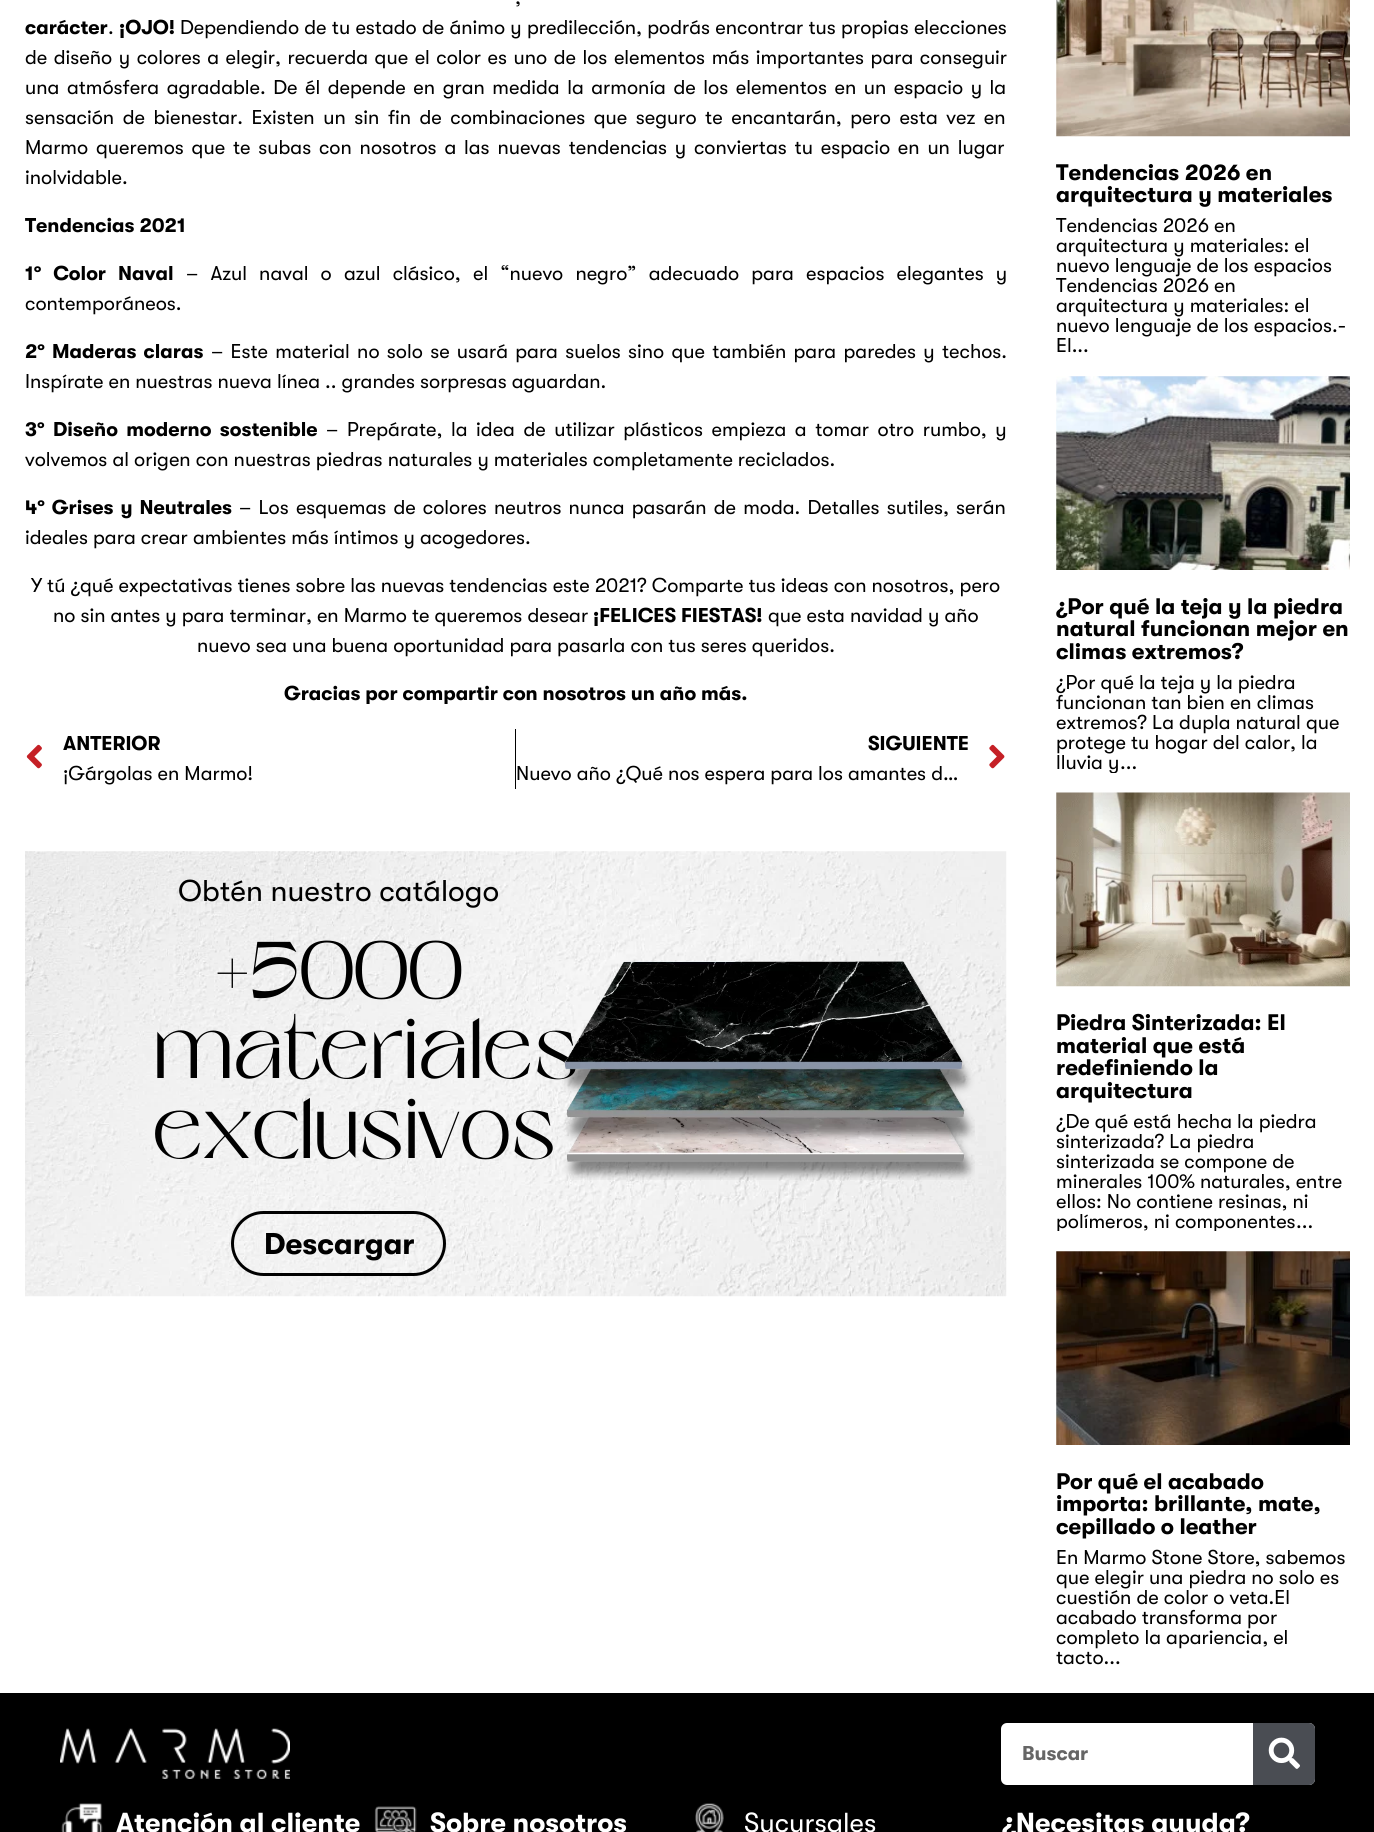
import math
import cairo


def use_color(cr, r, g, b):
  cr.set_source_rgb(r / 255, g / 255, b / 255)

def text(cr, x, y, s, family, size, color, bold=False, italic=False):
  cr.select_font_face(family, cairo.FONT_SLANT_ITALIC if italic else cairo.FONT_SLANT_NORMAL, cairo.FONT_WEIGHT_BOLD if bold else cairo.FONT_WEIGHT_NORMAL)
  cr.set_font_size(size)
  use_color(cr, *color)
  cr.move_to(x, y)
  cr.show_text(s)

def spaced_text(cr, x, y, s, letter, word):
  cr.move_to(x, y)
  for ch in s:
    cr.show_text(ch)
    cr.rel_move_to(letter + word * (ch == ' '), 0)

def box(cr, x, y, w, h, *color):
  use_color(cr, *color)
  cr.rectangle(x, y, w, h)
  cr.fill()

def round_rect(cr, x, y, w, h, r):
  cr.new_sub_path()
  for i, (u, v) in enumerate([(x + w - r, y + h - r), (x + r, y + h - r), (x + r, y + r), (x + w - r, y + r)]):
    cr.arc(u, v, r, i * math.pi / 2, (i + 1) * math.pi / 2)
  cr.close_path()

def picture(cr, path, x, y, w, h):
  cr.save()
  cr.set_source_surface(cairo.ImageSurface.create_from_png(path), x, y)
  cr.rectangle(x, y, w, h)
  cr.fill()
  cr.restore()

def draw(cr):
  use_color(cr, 255, 255, 255)
  cr.paint()
  picture(cr, "img_01.png", 26, 744, 16, 25)
  box(cr, 515, 729, 1, 60, 0, 0, 0)
  picture(cr, "img_02.png", 989, 744, 16, 25)
  picture(cr, "img_03.png", 25, 851, 982, 446)
  round_rect(cr, 232.5, 1212.5, 212, 62, 31)
  cr.set_line_width(3)
  cr.stroke()
  picture(cr, "img_05.png", 1056, 0, 294, 137)
  picture(cr, "img_06.png", 1056, 376, 294, 194)
  picture(cr, "img_07.png", 1056, 792, 294, 195)
  picture(cr, "img_08.png", 1056, 1251, 294, 194)
  box(cr, 0, 1693, 1374, 139, 0, 0, 0)
  picture(cr, "img_09.png", 60, 1728, 230, 51)
  use_color(cr, 255, 255, 255)
  round_rect(cr, 1001, 1723, 314, 62, 6)
  cr.fill()
  use_color(cr, 74, 77, 83)
  cr.new_path()
  cr.move_to(1253, 1723)
  cr.line_to(1309, 1723)
  cr.curve_to(1312.5, 1723, 1315, 1725.5, 1315, 1729)
  cr.line_to(1315, 1779)
  cr.curve_to(1315, 1782.5, 1312.5, 1785, 1309, 1785)
  cr.line_to(1253, 1785)
  cr.close_path()
  cr.fill()
  picture(cr, "img_10.png", 1268, 1737, 32, 32)
  picture(cr, "img_11.png", 61, 1803, 42, 29)
  picture(cr, "img_12.png", 374, 1806, 43, 26)
  picture(cr, "img_13.png", 695, 1803, 29, 29)
  cr.select_font_face("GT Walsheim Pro")
  cr.set_font_size(20)
  use_color(cr, 0, 0, 0)
  spaced_text(cr, 515, 4, ",", 0, 4)
  text(cr, 25, 34, "carácter", "GT Walsheim Pro", 20, (0, 0, 0), bold=True)
  text(cr, 108, 34, ".", "GT Walsheim Pro", 20, (0, 0, 0))
  text(cr, 119, 34, "¡OJO!", "GT Walsheim Pro", 20, (0, 0, 0), bold=True)
  cr.select_font_face("GT Walsheim Pro")
  spaced_text(cr, 180, 34, "Dependiendo de tu estado de ánimo y predilección, podrás encontrar tus propias elecciones", 0, 0.2)
  spaced_text(cr, 25, 64, "de diseño y colores a elegir, recuerda que el color es uno de los elementos más importantes para conseguir", 0, 1.5)
  spaced_text(cr, 25, 94, "una atmósfera agradable. De él depende en gran medida la armonía de los elementos en un espacio y la", 0, 2.5)
  spaced_text(cr, 25, 124, "sensación de bienestar. Existen un sin fin de combinaciones que seguro te encantarán, pero esta vez en", 0, 3.5)
  spaced_text(cr, 25, 154, "Marmo queremos que te subas con nosotros a las nuevas tendencias y conviertas tu espacio en un lugar", 0, 2.75)
  text(cr, 25, 184, "inolvidable.", "GT Walsheim Pro", 20, (0, 0, 0))
  text(cr, 25, 232, "Tendencias 2021", "GT Walsheim Pro", 20, (0, 0, 0), bold=True)
  spaced_text(cr, 25, 280, "1º Color Naval", 0, 7.1)
  cr.select_font_face("GT Walsheim Pro")
  spaced_text(cr, 186, 280, "– Azul naval o azul clásico, el “nuevo negro” adecuado para espacios elegantes y", 0, 7.1)
  text(cr, 25, 310, "contemporáneos.", "GT Walsheim Pro", 20, (0, 0, 0))
  cr.select_font_face("GT Walsheim Pro", cairo.FONT_SLANT_NORMAL, cairo.FONT_WEIGHT_BOLD)
  spaced_text(cr, 25, 358, "2º Maderas claras", 0, 2.25)
  cr.select_font_face("GT Walsheim Pro")
  spaced_text(cr, 211, 358, "– Este material no solo se usará para suelos sino que también para paredes y techos.", 0, 2.25)
  text(cr, 25, 388, "Inspírate en nuestras nueva línea .. grandes sorpresas aguardan.", "GT Walsheim Pro", 20, (0, 0, 0))
  cr.select_font_face("GT Walsheim Pro", cairo.FONT_SLANT_NORMAL, cairo.FONT_WEIGHT_BOLD)
  spaced_text(cr, 25, 436, "3º Diseño moderno sostenible", 0, 3.5)
  text(cr, 326, 436, "–", "GT Walsheim Pro", 20, (0, 0, 0))
  spaced_text(cr, 347, 436, "Prepárate, la idea de utilizar plásticos empieza a tomar otro rumbo, y", 0, 3.5)
  text(cr, 25, 466, "volvemos al origen con nuestras piedras naturales y materiales completamente reciclados.", "GT Walsheim Pro", 20, (0, 0, 0))
  cr.select_font_face("GT Walsheim Pro", cairo.FONT_SLANT_NORMAL, cairo.FONT_WEIGHT_BOLD)
  spaced_text(cr, 25, 514, "4º Grises y Neutrales", 0, 2.1)
  cr.select_font_face("GT Walsheim Pro")
  spaced_text(cr, 239, 514, "– Los esquemas de colores neutros nunca pasarán de moda. Detalles sutiles, serán", 0, 2.1)
  text(cr, 25, 544, "ideales para crear ambientes más íntimos y acogedores.", "GT Walsheim Pro", 20, (0, 0, 0))
  text(cr, 31, 592, "Y tú ¿qué expectativas tienes sobre las nuevas tendencias este 2021? Comparte tus ideas con nosotros, pero", "GT Walsheim Pro", 20, (0, 0, 0))
  text(cr, 53, 622, "no sin antes y para terminar, en Marmo te queremos desear", "GT Walsheim Pro", 20, (0, 0, 0))
  text(cr, 593, 622, "¡FELICES FIESTAS!", "GT Walsheim Pro", 20, (0, 0, 0), bold=True)
  text(cr, 768, 622, "que esta navidad y año", "GT Walsheim Pro", 20, (0, 0, 0))
  text(cr, 197, 652, "nuevo sea una buena oportunidad para pasarla con tus seres queridos.", "GT Walsheim Pro", 20, (0, 0, 0))
  text(cr, 284, 700, "Gracias por compartir con nosotros un año más.", "GT Walsheim Pro", 20, (0, 0, 0), bold=True)
  text(cr, 63, 750, "ANTERIOR", "GT Walsheim Pro", 20, (0, 0, 0), bold=True)
  text(cr, 63, 780, "¡Gárgolas en Marmo!", "GT Walsheim Pro", 20, (0, 0, 0))
  text(cr, 868, 750, "SIGUIENTE", "GT Walsheim Pro", 20, (0, 0, 0), bold=True)
  text(cr, 516, 780, "Nuevo año ¿Qué nos espera para los amantes d…", "GT Walsheim Pro", 20, (0, 0, 0))
  text(cr, 178, 901, "Obtén nuestro catálogo", "GT Walsheim Pro", 30, (0, 0, 0))
  text(cr, 216, 998, "+5000", "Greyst", 80, (0, 0, 0))
  text(cr, 153, 1078, "materiales", "Greyst", 80, (0, 0, 0))
  text(cr, 153, 1158, "exclusivos", "Greyst", 80, (0, 0, 0))
  text(cr, 264, 1254, "Descargar", "GT Walsheim Pro", 30, (0, 0, 0), bold=True)
  picture(cr, "img_04.png", 562, 961, 413, 219)
  text(cr, 1056, 180, "Tendencias 2026 en", "GT Walsheim Pro", 22.5, (0, 0, 0), bold=True)
  text(cr, 1056, 202, "arquitectura y materiales", "GT Walsheim Pro", 22.5, (0, 0, 0), bold=True)
  text(cr, 1056, 232, "Tendencias 2026 en", "GT Walsheim Pro", 20, (0, 0, 0))
  text(cr, 1056, 252, "arquitectura y materiales: el", "GT Walsheim Pro", 20, (0, 0, 0))
  text(cr, 1056, 272, "nuevo lenguaje de los espacios", "GT Walsheim Pro", 20, (0, 0, 0))
  text(cr, 1056, 292, "Tendencias 2026 en", "GT Walsheim Pro", 20, (0, 0, 0))
  text(cr, 1056, 312, "arquitectura y materiales: el", "GT Walsheim Pro", 20, (0, 0, 0))
  text(cr, 1056, 332, "nuevo lenguaje de los espacios.-", "GT Walsheim Pro", 20, (0, 0, 0))
  text(cr, 1056, 352, "El...", "GT Walsheim Pro", 20, (0, 0, 0))
  text(cr, 1056, 614, "¿Por qué la teja y la piedra", "GT Walsheim Pro", 22.5, (0, 0, 0), bold=True)
  text(cr, 1056, 636, "natural funcionan mejor en", "GT Walsheim Pro", 22.5, (0, 0, 0), bold=True)
  text(cr, 1056, 659, "climas extremos?", "GT Walsheim Pro", 22.5, (0, 0, 0), bold=True)
  text(cr, 1056, 689, "¿Por qué la teja y la piedra", "GT Walsheim Pro", 20, (0, 0, 0))
  text(cr, 1056, 709, "funcionan tan bien en climas", "GT Walsheim Pro", 20, (0, 0, 0))
  text(cr, 1056, 729, "extremos? La dupla natural que", "GT Walsheim Pro", 20, (0, 0, 0))
  text(cr, 1056, 749, "protege tu hogar del calor, la", "GT Walsheim Pro", 20, (0, 0, 0))
  cr.save()
  cr.rectangle(1056, 376, 294, 397)
  cr.clip()
  text(cr, 1056, 769, "lluvia y", "GT Walsheim Pro", 20, (0, 0, 0))
  cr.restore()
  text(cr, 1120, 769, "...", "GT Walsheim Pro", 20, (0, 0, 0))
  text(cr, 1056, 1030, "Piedra Sinterizada: El", "GT Walsheim Pro", 22.5, (0, 0, 0), bold=True)
  text(cr, 1056, 1053, "material que está", "GT Walsheim Pro", 22.5, (0, 0, 0), bold=True)
  text(cr, 1056, 1075, "redefiniendo la", "GT Walsheim Pro", 22.5, (0, 0, 0), bold=True)
  text(cr, 1056, 1098, "arquitectura", "GT Walsheim Pro", 22.5, (0, 0, 0), bold=True)
  text(cr, 1056, 1128, "¿De qué está hecha la piedra", "GT Walsheim Pro", 20, (0, 0, 0))
  text(cr, 1056, 1148, "sinterizada? La piedra", "GT Walsheim Pro", 20, (0, 0, 0))
  text(cr, 1056, 1168, "sinterizada se compone de", "GT Walsheim Pro", 20, (0, 0, 0))
  text(cr, 1056, 1188, "minerales 100% naturales, entre", "GT Walsheim Pro", 20, (0, 0, 0))
  text(cr, 1056, 1208, "ellos: No contiene resinas, ni", "GT Walsheim Pro", 20, (0, 0, 0))
  cr.save()
  cr.rectangle(1056, 793, 294, 438)
  cr.clip()
  text(cr, 1056, 1228, "polímeros, ni componentes", "GT Walsheim Pro", 20, (0, 0, 0))
  cr.restore()
  text(cr, 1296, 1228, "...", "GT Walsheim Pro", 20, (0, 0, 0))
  text(cr, 1056, 1489, "Por qué el acabado", "GT Walsheim Pro", 22.5, (0, 0, 0), bold=True)
  text(cr, 1056, 1511, "importa: brillante, mate,", "GT Walsheim Pro", 22.5, (0, 0, 0), bold=True)
  text(cr, 1056, 1534, "cepillado o leather", "GT Walsheim Pro", 22.5, (0, 0, 0), bold=True)
  text(cr, 1056, 1564, "En Marmo Stone Store, sabemos", "GT Walsheim Pro", 20, (0, 0, 0))
  text(cr, 1056, 1584, "que elegir una piedra no solo es", "GT Walsheim Pro", 20, (0, 0, 0))
  text(cr, 1056, 1604, "cuestión de color o veta.El", "GT Walsheim Pro", 20, (0, 0, 0))
  text(cr, 1056, 1624, "acabado transforma por", "GT Walsheim Pro", 20, (0, 0, 0))
  text(cr, 1056, 1644, "completo la apariencia, el", "GT Walsheim Pro", 20, (0, 0, 0))
  text(cr, 1056, 1664, "tacto...", "GT Walsheim Pro", 20, (0, 0, 0))
  text(cr, 1022, 1760, "Buscar", "GT Walsheim Pro", 20, (102, 102, 102), bold=True)
  text(cr, 116, 1832, "Atención al cliente", "GT Walsheim Pro", 27.5, (255, 255, 255), bold=True)
  text(cr, 430, 1832, "Sobre nosotros", "GT Walsheim Pro", 27.5, (255, 255, 255), bold=True)
  text(cr, 744, 1832, "Sucursales", "GT Walsheim Pro", 27.5, (255, 255, 255))
  text(cr, 1002, 1832, "¿Necesitas ayuda?", "GT Walsheim Pro", 27.5, (255, 255, 255), bold=True)


surface = cairo.ImageSurface(cairo.FORMAT_RGB24, 1374, 1832)
cr = cairo.Context(surface)
options = cairo.FontOptions()
options.set_hint_metrics(cairo.HINT_METRICS_OFF)
options.set_hint_style(cairo.HINT_STYLE_NONE)
cr.set_font_options(options)
cr.set_miter_limit(4)
draw(cr)
surface.write_to_png("out.png")
